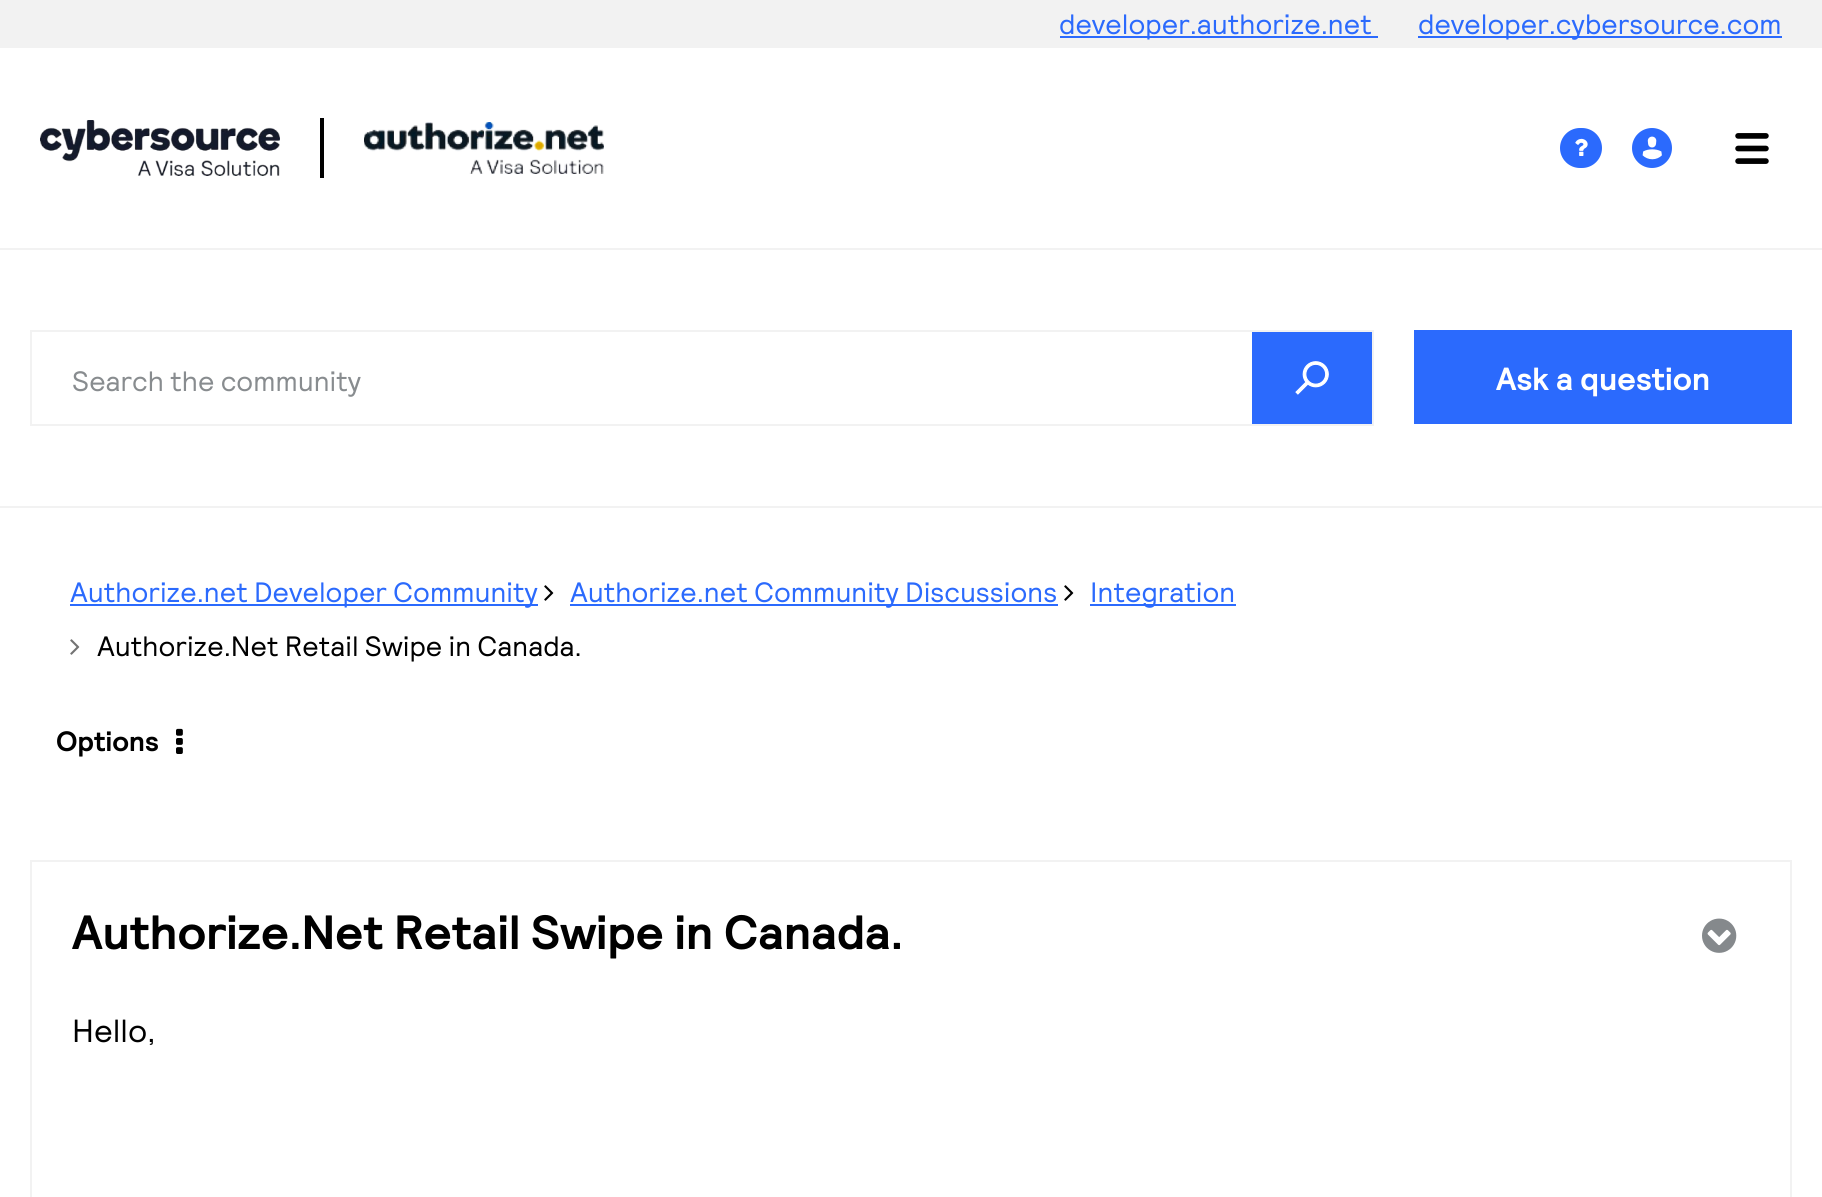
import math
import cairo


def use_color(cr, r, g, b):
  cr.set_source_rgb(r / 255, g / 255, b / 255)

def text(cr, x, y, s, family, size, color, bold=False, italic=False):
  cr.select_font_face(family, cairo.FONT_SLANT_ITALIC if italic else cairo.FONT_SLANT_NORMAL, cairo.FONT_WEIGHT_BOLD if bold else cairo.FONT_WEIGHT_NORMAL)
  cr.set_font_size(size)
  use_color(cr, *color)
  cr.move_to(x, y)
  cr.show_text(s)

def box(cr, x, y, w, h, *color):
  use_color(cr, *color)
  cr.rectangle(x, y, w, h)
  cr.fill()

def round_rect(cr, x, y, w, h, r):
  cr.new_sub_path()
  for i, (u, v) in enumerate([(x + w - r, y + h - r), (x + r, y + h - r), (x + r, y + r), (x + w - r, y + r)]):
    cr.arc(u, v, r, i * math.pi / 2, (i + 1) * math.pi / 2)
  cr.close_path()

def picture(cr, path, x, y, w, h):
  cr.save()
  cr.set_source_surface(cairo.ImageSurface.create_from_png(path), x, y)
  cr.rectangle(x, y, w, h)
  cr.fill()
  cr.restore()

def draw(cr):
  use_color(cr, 255, 255, 255)
  cr.paint()
  box(cr, 0, 0, 1822, 48, 242, 242, 242)
  box(cr, 1060, 36, 318, 2, 43, 106, 253)
  box(cr, 1418, 36, 364, 2, 43, 106, 253)
  box(cr, 0, 248, 1822, 2, 242, 242, 242)
  picture(cr, "img_01.png", 40, 120, 240, 56)
  box(cr, 320, 118, 4, 60, 0, 0, 0)
  picture(cr, "img_02.png", 364, 122, 240, 52)
  use_color(cr, 43, 106, 253)
  round_rect(cr, 1560, 128, 42, 40, 20)
  cr.fill()
  picture(cr, "img_03.png", 1575, 138, 13, 18)
  cr.arc(1652, 148, 20, 0, 2 * math.pi)
  cr.fill()
  picture(cr, "img_04.png", 1642, 136, 20, 24)
  picture(cr, "img_05.png", 1735, 133, 34, 31)
  box(cr, 0, 506, 1822, 2, 242, 242, 242)
  cr.rectangle(31, 331, 1342, 94)
  cr.stroke()
  box(cr, 1252, 332, 120, 92, 43, 106, 253)
  picture(cr, "img_06.png", 1295, 361, 34, 34)
  box(cr, 1414, 330, 378, 94, 43, 106, 253)
  box(cr, 70, 604, 468, 2, 43, 106, 253)
  picture(cr, "img_07.png", 544, 585, 10, 16)
  box(cr, 570, 604, 488, 2, 43, 106, 253)
  picture(cr, "img_07.png", 1064, 585, 10, 16)
  box(cr, 1090, 604, 146, 2, 43, 106, 253)
  picture(cr, "img_08.png", 70, 639, 10, 16)
  picture(cr, "img_09.png", 176, 728, 7, 26)
  cr.rectangle(31, 861, 1760, 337)
  use_color(cr, 242, 242, 242)
  cr.stroke()
  picture(cr, "img_10.png", 1702, 918, 35, 35)
  text(cr, 1059, 34, "developer.authorize.net", "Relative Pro", 28, (43, 106, 253))
  text(cr, 1418, 34, "developer.cybersource.com", "Relative Pro", 28, (43, 106, 253))
  text(cr, 72, 391, "Search the community", "Relative Pro", 28, (136, 140, 143))
  text(cr, 1496, 390, "Ask a question", "Relative Pro", 32, (255, 255, 255), bold=True)
  text(cr, 70, 602, "Authorize.net Developer Community", "Relative Pro", 28, (43, 106, 253))
  text(cr, 570, 602, "Authorize.net Community Discussions", "Relative Pro", 28, (43, 106, 253))
  text(cr, 1090, 602, "Integration", "Relative Pro", 28, (43, 106, 253))
  text(cr, 97, 656, "Authorize.Net Retail Swipe in Canada.", "Relative Pro", 28, (0, 0, 0))
  text(cr, 56, 751, "Options", "Relative Pro", 28, (0, 0, 0), bold=True)
  text(cr, 72, 949, "Authorize.Net Retail Swipe in Canada.", "Relative Pro", 48, (0, 0, 0), bold=True)
  text(cr, 72, 1042, "Hello,", "Relative Pro", 32, (0, 0, 0))


surface = cairo.ImageSurface(cairo.FORMAT_RGB24, 1822, 1197)
cr = cairo.Context(surface)
options = cairo.FontOptions()
options.set_hint_metrics(cairo.HINT_METRICS_OFF)
options.set_hint_style(cairo.HINT_STYLE_NONE)
cr.set_font_options(options)
cr.set_miter_limit(4)
draw(cr)
surface.write_to_png("out.png")
